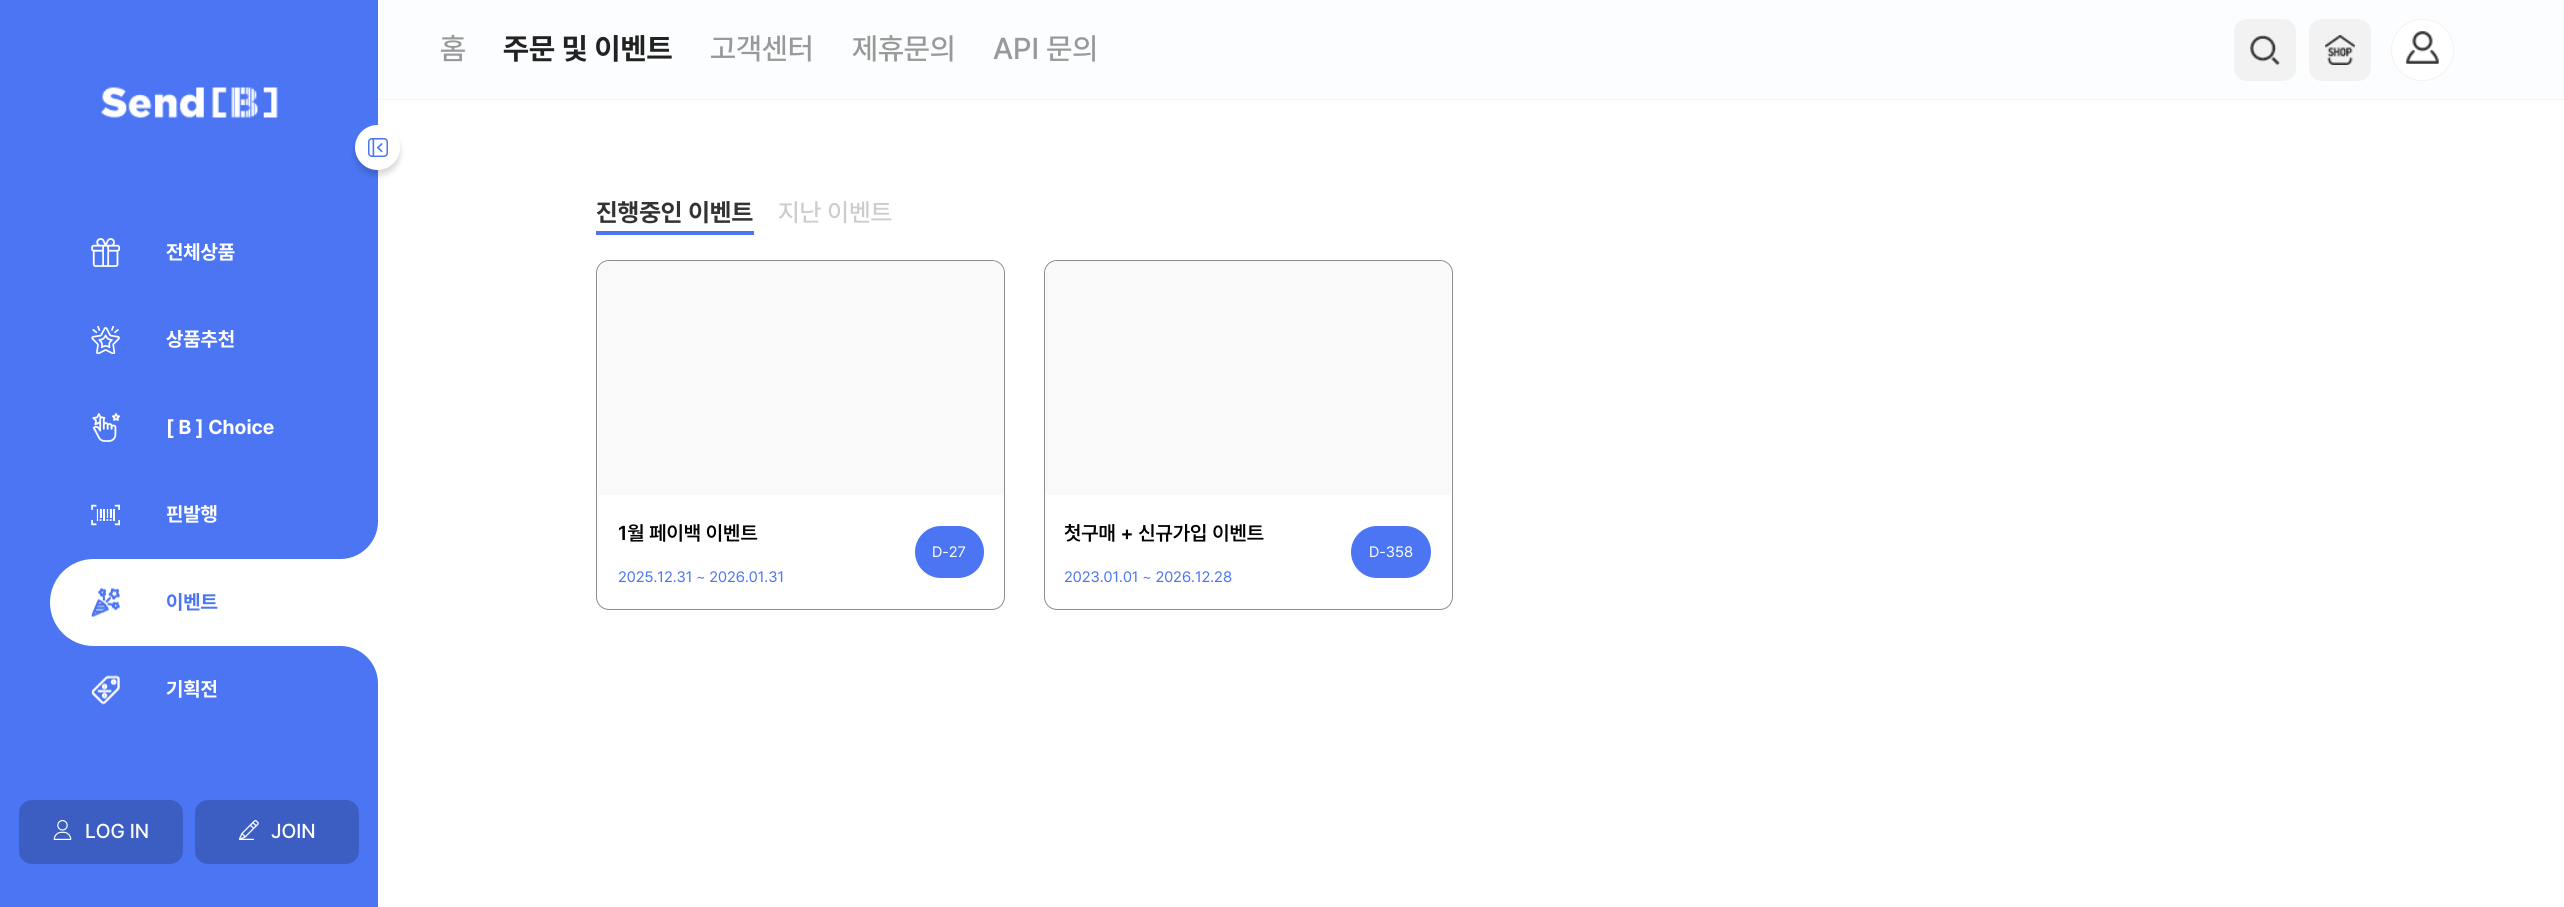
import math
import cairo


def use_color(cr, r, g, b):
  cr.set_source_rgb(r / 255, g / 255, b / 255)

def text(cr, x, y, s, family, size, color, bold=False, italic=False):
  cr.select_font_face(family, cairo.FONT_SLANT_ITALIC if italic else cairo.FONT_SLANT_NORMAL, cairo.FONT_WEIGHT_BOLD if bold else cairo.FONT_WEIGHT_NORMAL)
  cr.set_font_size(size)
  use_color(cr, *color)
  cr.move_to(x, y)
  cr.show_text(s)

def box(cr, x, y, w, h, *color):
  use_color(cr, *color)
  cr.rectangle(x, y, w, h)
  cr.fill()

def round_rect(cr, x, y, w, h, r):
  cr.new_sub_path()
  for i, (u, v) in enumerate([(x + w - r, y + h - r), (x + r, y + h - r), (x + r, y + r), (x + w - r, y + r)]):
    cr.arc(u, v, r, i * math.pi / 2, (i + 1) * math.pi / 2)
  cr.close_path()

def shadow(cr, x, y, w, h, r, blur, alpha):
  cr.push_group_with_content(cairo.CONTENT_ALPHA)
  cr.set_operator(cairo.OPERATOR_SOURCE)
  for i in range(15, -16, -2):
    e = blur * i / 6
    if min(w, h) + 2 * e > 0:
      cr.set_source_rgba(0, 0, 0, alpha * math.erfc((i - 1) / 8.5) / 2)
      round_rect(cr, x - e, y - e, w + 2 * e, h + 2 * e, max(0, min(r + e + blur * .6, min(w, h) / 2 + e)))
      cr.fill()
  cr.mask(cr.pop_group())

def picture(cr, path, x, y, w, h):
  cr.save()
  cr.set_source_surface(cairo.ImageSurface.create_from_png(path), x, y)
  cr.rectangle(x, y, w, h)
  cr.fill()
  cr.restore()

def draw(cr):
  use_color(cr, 255, 255, 255)
  cr.paint()
  box(cr, 0, 0, 378, 907, 75, 117, 242)
  use_color(cr, 0, 0, 0)
  shadow(cr, 355, 130, 45, 45, 22.5, 3, 0.16)
  use_color(cr, 255, 255, 255)
  cr.arc(377.5, 147.5, 22.5, 0, 2 * math.pi)
  cr.fill()
  picture(cr, "img_01.png", 368, 138, 20, 19)
  picture(cr, "img_02.png", 101, 87, 177, 31)
  picture(cr, "img_03.png", 91, 238, 29, 29)
  picture(cr, "img_04.png", 91, 326, 29, 28)
  picture(cr, "img_05.png", 92, 413, 28, 29)
  picture(cr, "img_06.png", 91, 504, 29, 22)
  cr.new_path()
  cr.move_to(93.5, 559)
  cr.line_to(378, 559)
  cr.line_to(378, 646)
  cr.line_to(93.5, 646)
  cr.curve_to(69.5, 646, 50, 626.5, 50, 602.5)
  cr.curve_to(50, 578.5, 69.5, 559, 93.5, 559)
  cr.close_path()
  cr.fill()
  picture(cr, "img_07.png", 91, 588, 29, 29)
  picture(cr, "img_08.png", 91, 675, 29, 30)
  box(cr, 341, 521, 37, 38, 255, 255, 255)
  use_color(cr, 75, 117, 242)
  cr.new_path()
  cr.move_to(303, 484)
  cr.line_to(378, 484)
  cr.line_to(378, 521.5)
  cr.curve_to(378, 542, 361, 559, 340.5, 559)
  cr.line_to(303, 559)
  cr.close_path()
  cr.fill()
  box(cr, 341, 646, 37, 38, 255, 255, 255)
  use_color(cr, 75, 117, 242)
  cr.new_path()
  cr.move_to(303, 646)
  cr.line_to(340.5, 646)
  cr.curve_to(361, 646, 378, 663, 378, 683.5)
  cr.line_to(378, 721)
  cr.line_to(303, 721)
  cr.close_path()
  cr.fill()
  use_color(cr, 60, 94, 194)
  round_rect(cr, 19, 800, 164, 64, 13)
  cr.fill()
  picture(cr, "img_09.png", 53, 820, 19, 20)
  round_rect(cr, 195, 800, 164, 64, 13)
  cr.fill()
  picture(cr, "img_10.png", 239, 820, 20, 20)
  box(cr, 378, 0, 2186, 99, 252, 253, 254)
  box(cr, 378, 99, 2186, 1, 245, 248, 251)
  use_color(cr, 242, 242, 242)
  round_rect(cr, 2234.5, 19.5, 61, 61, 12.5)
  cr.fill_preserve()
  cr.set_line_width(1)
  cr.stroke()
  picture(cr, "img_11.png", 2250, 35, 30, 30)
  round_rect(cr, 2309.5, 19.5, 61, 61, 12.5)
  cr.fill_preserve()
  cr.stroke()
  picture(cr, "img_12.png", 2325, 35, 30, 30)
  use_color(cr, 255, 255, 255)
  round_rect(cr, 2391.5, 19.5, 62, 61, 30.5)
  cr.fill_preserve()
  use_color(cr, 242, 242, 242)
  cr.stroke()
  picture(cr, "img_13.png", 2406, 31, 33, 33)
  box(cr, 596, 231, 158, 4, 75, 117, 242)
  round_rect(cr, 596.5, 260.5, 408, 349, 12.5)
  use_color(cr, 141, 141, 141)
  cr.stroke()
  cr.save()
  round_rect(cr, 598, 261, 406, 348, 11)
  cr.clip()
  use_color(cr, 249, 249, 249)
  cr.new_path()
  cr.move_to(611, 261)
  cr.line_to(991, 261)
  cr.curve_to(998, 261, 1004, 267, 1004, 274)
  cr.line_to(1004, 495)
  cr.line_to(598, 495)
  cr.line_to(598, 274)
  cr.curve_to(598, 267, 604, 261, 611, 261)
  cr.close_path()
  cr.fill()
  cr.restore()
  use_color(cr, 75, 117, 242)
  round_rect(cr, 915, 526, 69, 52, 26)
  cr.fill()
  round_rect(cr, 1044.5, 260.5, 408, 349, 12.5)
  use_color(cr, 141, 141, 141)
  cr.stroke()
  cr.save()
  round_rect(cr, 1045, 261, 406, 348, 11)
  cr.clip()
  use_color(cr, 249, 249, 249)
  cr.new_path()
  cr.move_to(1058, 261)
  cr.line_to(1438, 261)
  cr.curve_to(1445, 261, 1451, 267, 1451, 274)
  cr.line_to(1451, 495)
  cr.line_to(1045, 495)
  cr.line_to(1045, 274)
  cr.curve_to(1045, 267, 1051, 261, 1058, 261)
  cr.close_path()
  cr.fill()
  cr.restore()
  use_color(cr, 75, 117, 242)
  round_rect(cr, 1351, 526, 80, 52, 26)
  cr.fill()
  text(cr, 166, 259, "전체상품", "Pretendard", 20, (255, 255, 255), bold=True)
  text(cr, 166, 346, "상품추천", "Pretendard", 20, (255, 255, 255), bold=True)
  text(cr, 166, 434, "[ B ] Choice", "Pretendard", 20, (255, 255, 255), bold=True)
  text(cr, 166, 521, "핀발행", "Pretendard", 20, (255, 255, 255), bold=True)
  text(cr, 166, 609, "이벤트", "Pretendard", 20, (75, 117, 242), bold=True)
  text(cr, 166, 696, "기획전", "Pretendard", 20, (255, 255, 255), bold=True)
  text(cr, 85, 838, "LOG IN", "Pretendard Medium", 20, (255, 255, 255))
  text(cr, 271, 838, "JOIN", "Pretendard Medium", 20, (255, 255, 255))
  text(cr, 440, 59, "홈", "Pretendard Medium", 30, (153, 153, 153))
  text(cr, 503, 59, "주문 및 이벤트", "Pretendard", 30, (34, 34, 34), bold=True)
  text(cr, 710, 59, "고객센터", "Pretendard Medium", 30, (153, 153, 153))
  text(cr, 852, 59, "제휴문의", "Pretendard Medium", 30, (153, 153, 153))
  text(cr, 993, 59, "API 문의", "Pretendard Medium", 30, (153, 153, 153))
  text(cr, 596, 221, "진행중인 이벤트", "Pretendard", 25, (51, 51, 51), bold=True)
  text(cr, 778, 221, "지난 이벤트", "Pretendard Medium", 25, (204, 204, 204))
  text(cr, 618, 540, "1월 페이백 이벤트", "Pretendard SemiBold", 20, (0, 0, 0))
  text(cr, 618, 582, "2025.12.31 ~ 2026.01.31", "Pretendard", 15, (75, 117, 242))
  text(cr, 932, 557, "D-27", "Pretendard", 15, (255, 255, 255))
  text(cr, 1064, 540, "첫구매 + 신규가입 이벤트", "Pretendard SemiBold", 20, (0, 0, 0))
  text(cr, 1064, 582, "2023.01.01 ~ 2026.12.28", "Pretendard", 15, (75, 117, 242))
  text(cr, 1369, 557, "D-358", "Pretendard", 15, (255, 255, 255))


surface = cairo.ImageSurface(cairo.FORMAT_RGB24, 2564, 907)
cr = cairo.Context(surface)
options = cairo.FontOptions()
options.set_hint_metrics(cairo.HINT_METRICS_OFF)
options.set_hint_style(cairo.HINT_STYLE_NONE)
cr.set_font_options(options)
cr.set_miter_limit(4)
draw(cr)
surface.write_to_png("out.png")
